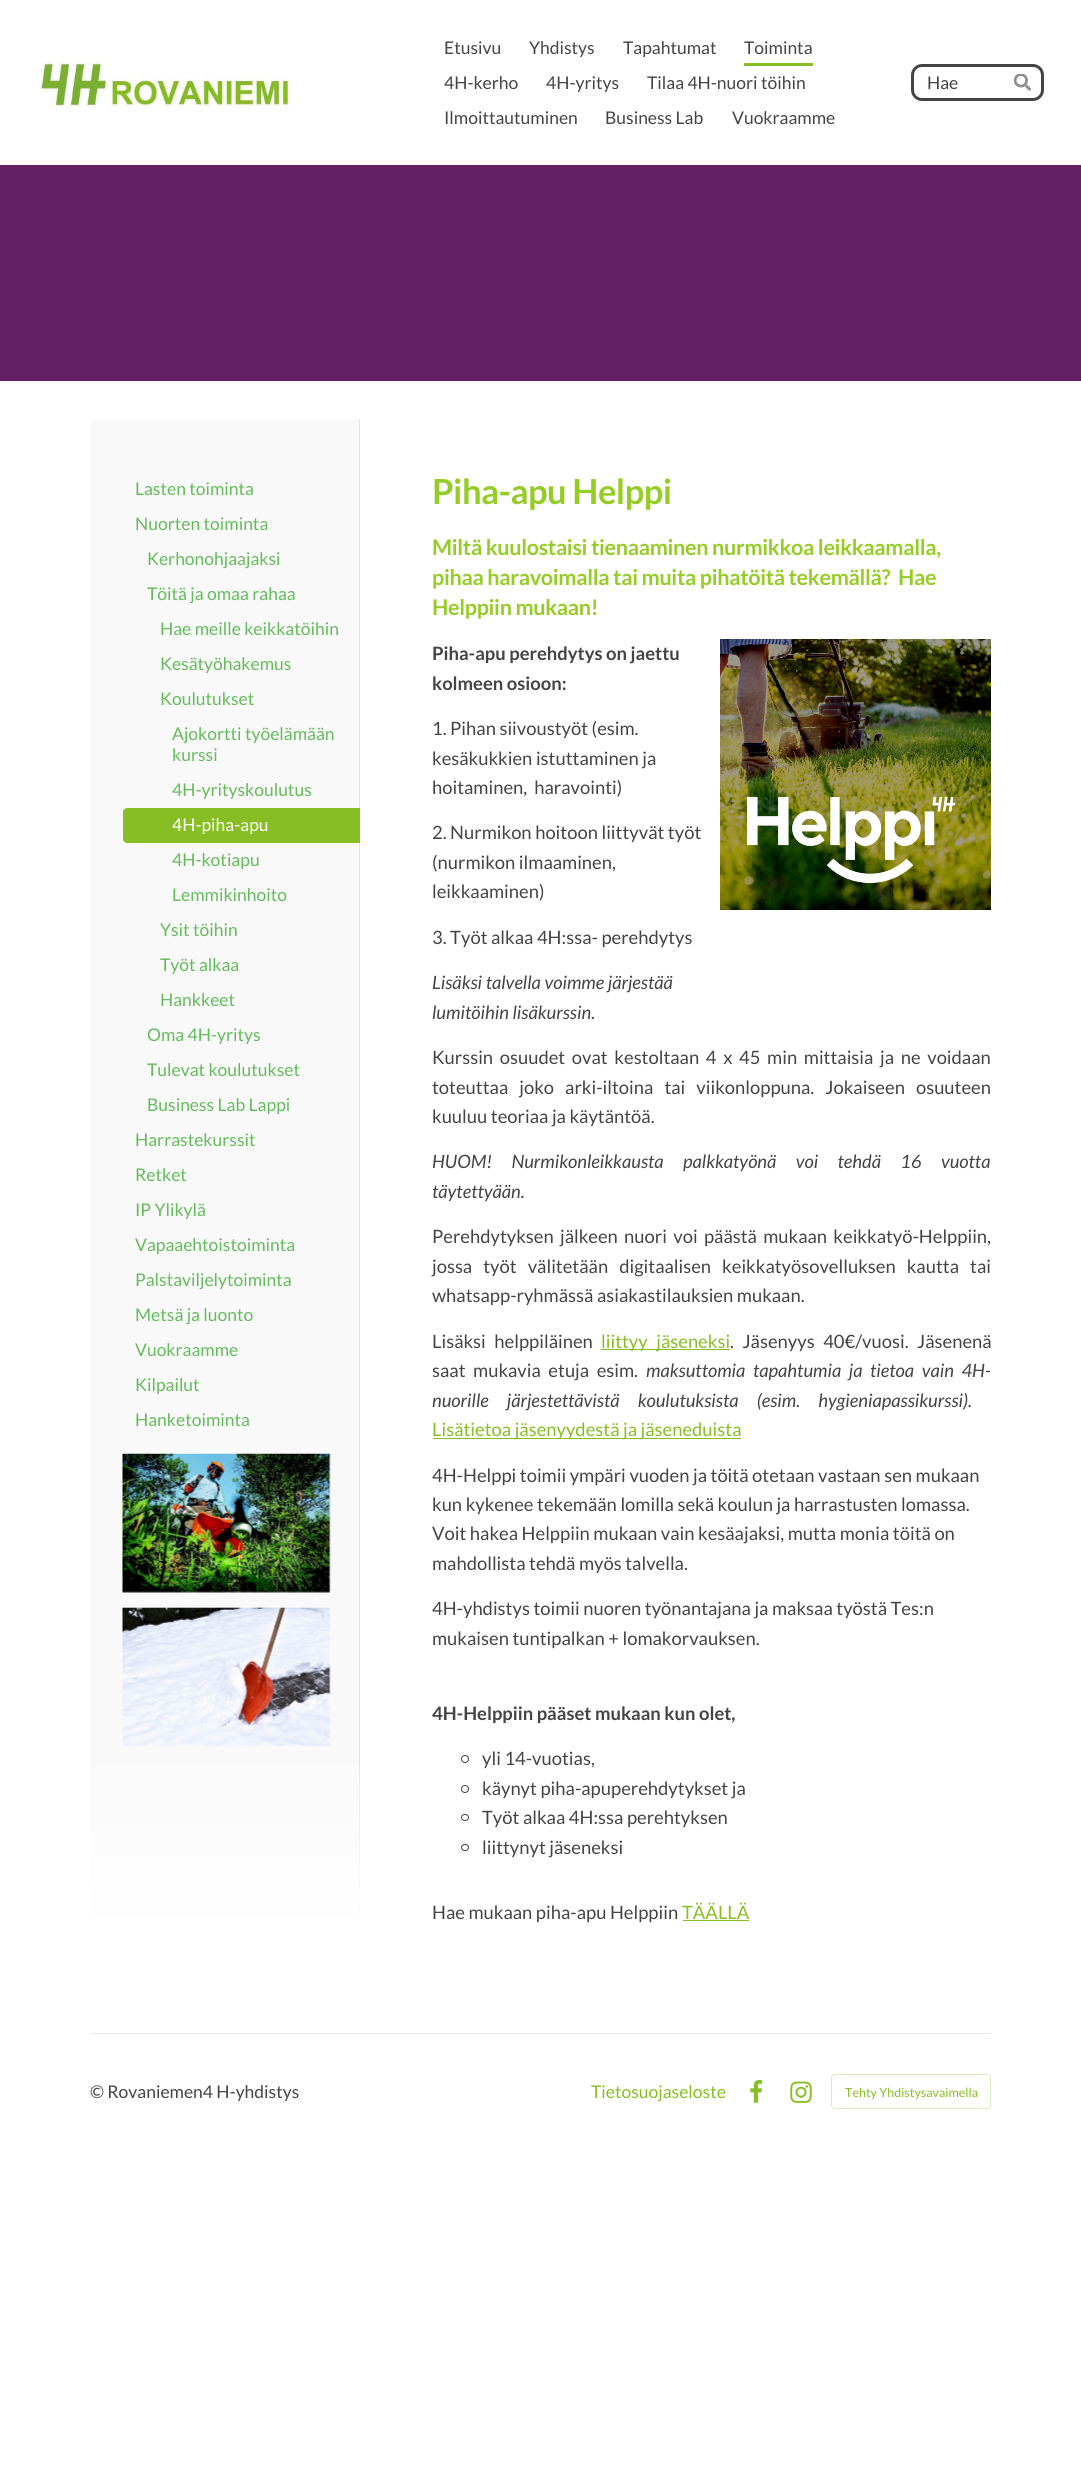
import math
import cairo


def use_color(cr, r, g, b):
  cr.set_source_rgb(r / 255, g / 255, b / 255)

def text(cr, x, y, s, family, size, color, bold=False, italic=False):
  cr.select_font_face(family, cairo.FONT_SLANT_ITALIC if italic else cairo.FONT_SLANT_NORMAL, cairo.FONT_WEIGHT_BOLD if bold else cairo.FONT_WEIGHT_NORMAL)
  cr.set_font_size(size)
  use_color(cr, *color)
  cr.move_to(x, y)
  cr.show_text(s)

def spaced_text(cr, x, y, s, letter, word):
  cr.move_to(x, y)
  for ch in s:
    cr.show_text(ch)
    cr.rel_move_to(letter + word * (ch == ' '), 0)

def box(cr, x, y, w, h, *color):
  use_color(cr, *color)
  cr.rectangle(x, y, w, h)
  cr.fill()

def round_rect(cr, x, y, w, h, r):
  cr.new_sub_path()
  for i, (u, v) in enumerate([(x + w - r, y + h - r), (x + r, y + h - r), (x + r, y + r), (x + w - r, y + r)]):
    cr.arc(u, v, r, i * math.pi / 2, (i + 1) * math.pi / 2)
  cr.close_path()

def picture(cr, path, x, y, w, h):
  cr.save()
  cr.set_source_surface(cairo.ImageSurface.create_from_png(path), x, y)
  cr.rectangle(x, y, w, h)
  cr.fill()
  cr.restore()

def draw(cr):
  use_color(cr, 255, 255, 255)
  cr.paint()
  picture(cr, "img_01.png", 37, 61, 254, 48)
  box(cr, 744, 63, 69, 3, 135, 190, 35)
  round_rect(cr, 912.5, 65.5, 130, 34, 9.5)
  use_color(cr, 68, 68, 68)
  cr.set_line_width(3)
  cr.stroke()
  picture(cr, "img_02.png", 1014, 74, 17, 17)
  box(cr, 0, 165, 1081, 216, 100, 31, 100)
  use_color(cr, 249, 249, 249)
  cr.new_path()
  cr.move_to(94, 419)
  cr.line_to(360, 419)
  cr.line_to(360, 1934)
  cr.line_to(90, 1934)
  cr.line_to(90, 423)
  cr.curve_to(90, 421, 92, 419, 94, 419)
  cr.close_path()
  cr.fill()
  box(cr, 359, 419, 1, 1515, 230, 230, 230)
  use_color(cr, 135, 190, 35)
  cr.new_path()
  cr.move_to(127, 808)
  cr.line_to(360, 808)
  cr.line_to(360, 843)
  cr.line_to(127, 843)
  cr.curve_to(125, 843, 123, 841, 123, 839)
  cr.line_to(123, 812)
  cr.curve_to(123, 810, 125, 808, 127, 808)
  cr.close_path()
  cr.fill()
  picture(cr, "img_03.png", 122, 1453, 209, 140)
  picture(cr, "img_04.png", 122, 1607, 209, 140)
  gradient = cairo.LinearGradient(225, 1746, 225, 1934)
  gradient.add_color_stop_rgba(0, 1, 1, 1, 0)
  gradient.add_color_stop_rgba(1, 1, 1, 1, 1)
  cr.set_source(gradient)
  cr.rectangle(90, 1766, 270, 168)
  cr.fill()
  picture(cr, "img_05.png", 720, 639, 271, 271)
  box(cr, 601, 1349, 129, 1, 135, 190, 35)
  box(cr, 433, 1438, 308, 1, 135, 190, 35)
  cr.arc(465, 1759, 3.5, 0, 2 * math.pi)
  use_color(cr, 68, 68, 68)
  cr.set_line_width(1)
  cr.stroke()
  cr.arc(465, 1789, 3.5, 0, 2 * math.pi)
  cr.stroke()
  round_rect(cr, 461.5, 1814.5, 7, 6, 3)
  cr.stroke()
  round_rect(cr, 461.5, 1844.5, 7, 6, 3)
  cr.stroke()
  box(cr, 683, 1920, 66, 1, 135, 190, 35)
  box(cr, 90, 2033, 901, 1, 230, 230, 230)
  picture(cr, "img_06.png", 750, 2080, 13, 23)
  picture(cr, "img_07.png", 790, 2081, 22, 22)
  round_rect(cr, 831.5, 2074.5, 159, 34, 3.5)
  use_color(cr, 219, 236, 189)
  cr.stroke()
  text(cr, 444, 54, "Etusivu", "Lato", 17.5, (68, 68, 68))
  text(cr, 529, 54, "Yhdistys", "Lato", 17.5, (68, 68, 68))
  text(cr, 623, 54, "Tapahtumat", "Lato", 17.5, (68, 68, 68))
  text(cr, 744, 54, "Toiminta", "Lato", 17.5, (68, 68, 68))
  text(cr, 444, 89, "4H-kerho", "Lato", 17.5, (68, 68, 68))
  text(cr, 546, 89, "4H-yritys", "Lato", 17.5, (68, 68, 68))
  text(cr, 647, 89, "Tilaa 4H-nuori töihin", "Lato", 17.5, (68, 68, 68))
  text(cr, 444, 124, "Ilmoittautuminen", "Lato", 17.5, (68, 68, 68))
  text(cr, 605, 124, "Business Lab", "Lato", 17.5, (68, 68, 68))
  text(cr, 732, 124, "Vuokraamme", "Lato", 17.5, (68, 68, 68))
  text(cr, 927, 89, "Hae", "Lato", 17.5, (68, 68, 68))
  text(cr, 135, 495, "Lasten toiminta", "Lato", 17.5, (99, 187, 91))
  text(cr, 135, 530, "Nuorten toiminta", "Lato", 17.5, (99, 187, 91))
  text(cr, 147, 565, "Kerhonohjaajaksi", "Lato", 17.5, (99, 187, 91))
  text(cr, 147, 600, "Töitä ja omaa rahaa", "Lato", 17.5, (99, 187, 91))
  text(cr, 160, 635, "Hae meille keikkatöihin", "Lato", 17.5, (99, 187, 91))
  text(cr, 160, 670, "Kesätyöhakemus", "Lato", 17.5, (99, 187, 91))
  text(cr, 160, 705, "Koulutukset", "Lato", 17.5, (99, 187, 91))
  text(cr, 172, 740, "Ajokortti työelämään", "Lato", 17.5, (99, 187, 91))
  text(cr, 172, 761, "kurssi", "Lato", 17.5, (99, 187, 91))
  text(cr, 172, 796, "4H-yrityskoulutus", "Lato", 17.5, (99, 187, 91))
  text(cr, 172, 831, "4H-piha-apu", "Lato", 17.5, (255, 255, 255))
  text(cr, 172, 866, "4H-kotiapu", "Lato", 17.5, (99, 187, 91))
  text(cr, 172, 901, "Lemmikinhoito", "Lato", 17.5, (99, 187, 91))
  text(cr, 160, 936, "Ysit töihin", "Lato", 17.5, (99, 187, 91))
  text(cr, 160, 971, "Työt alkaa", "Lato", 17.5, (99, 187, 91))
  text(cr, 160, 1006, "Hankkeet", "Lato", 17.5, (99, 187, 91))
  text(cr, 147, 1041, "Oma 4H-yritys", "Lato", 17.5, (99, 187, 91))
  text(cr, 147, 1076, "Tulevat koulutukset", "Lato", 17.5, (99, 187, 91))
  text(cr, 147, 1111, "Business Lab Lappi", "Lato", 17.5, (99, 187, 91))
  text(cr, 135, 1146, "Harrastekurssit", "Lato", 17.5, (99, 187, 91))
  text(cr, 135, 1181, "Retket", "Lato", 17.5, (99, 187, 91))
  text(cr, 135, 1216, "IP Ylikylä", "Lato", 17.5, (99, 187, 91))
  text(cr, 135, 1251, "Vapaaehtoistoiminta", "Lato", 17.5, (99, 187, 91))
  text(cr, 135, 1286, "Palstaviljelytoiminta", "Lato", 17.5, (99, 187, 91))
  text(cr, 135, 1321, "Metsä ja luonto", "Lato", 17.5, (99, 187, 91))
  text(cr, 135, 1356, "Vuokraamme", "Lato", 17.5, (99, 187, 91))
  text(cr, 135, 1391, "Kilpailut", "Lato", 17.5, (99, 187, 91))
  text(cr, 135, 1426, "Hanketoiminta", "Lato", 17.5, (99, 187, 91))
  cr.select_font_face("Lato", cairo.FONT_SLANT_NORMAL, cairo.FONT_WEIGHT_BOLD)
  cr.set_font_size(34.5)
  use_color(cr, 149, 204, 37)
  spaced_text(cr, 432, 504, "Piha-apu Helppi", -0.5, 0)
  cr.set_font_size(21.6)
  spaced_text(cr, 432, 555, "Miltä kuulostaisi tienaaminen nurmikkoa leikkaamalla,", -0.32, 0)
  spaced_text(cr, 432, 585, "pihaa haravoimalla tai muita pihatöitä tekemällä?  Hae", -0.32, 0)
  spaced_text(cr, 432, 615, "Helppiin mukaan!", -0.32, 0)
  text(cr, 432, 660, "Piha-apu perehdytys on jaettu", "Lato", 18.4, (68, 68, 68), bold=True)
  text(cr, 432, 690, "kolmeen osioon:", "Lato", 18.4, (68, 68, 68), bold=True)
  text(cr, 432, 735, "1. Pihan siivoustyöt (esim.", "Lato", 18.4, (68, 68, 68))
  text(cr, 432, 765, "kesäkukkien istuttaminen ja", "Lato", 18.4, (68, 68, 68))
  text(cr, 432, 794, "hoitaminen,  haravointi)", "Lato", 18.4, (68, 68, 68))
  text(cr, 432, 839, "2. Nurmikon hoitoon liittyvät työt", "Lato", 18.4, (68, 68, 68))
  text(cr, 432, 869, "(nurmikon ilmaaminen,", "Lato", 18.4, (68, 68, 68))
  text(cr, 432, 898, "leikkaaminen)", "Lato", 18.4, (68, 68, 68))
  text(cr, 432, 944, "3. Työt alkaa 4H:ssa- perehdytys", "Lato", 18.4, (68, 68, 68))
  text(cr, 432, 989, "Lisäksi talvella voimme järjestää", "Lato", 18.4, (68, 68, 68), italic=True)
  text(cr, 432, 1019, "lumitöihin lisäkurssin.", "Lato", 18.4, (68, 68, 68), italic=True)
  cr.select_font_face("Lato")
  spaced_text(cr, 432, 1064, "Kurssin osuudet ovat kestoltaan 4 x 45 min mittaisia ja ne voidaan", 0, 3.1)
  spaced_text(cr, 432, 1094, "toteuttaa joko arki-iltoina tai viikonloppuna. Jokaiseen osuuteen", 0, 7.5)
  text(cr, 432, 1123, "kuuluu teoriaa ja käytäntöä.", "Lato", 18.4, (68, 68, 68))
  cr.select_font_face("Lato", cairo.FONT_SLANT_ITALIC)
  spaced_text(cr, 432, 1168, "HUOM! Nurmikonleikkausta palkkatyönä voi tehdä 16 vuotta", 0, 15.75)
  text(cr, 432, 1198, "täytettyään.", "Lato", 18.4, (68, 68, 68), italic=True)
  cr.select_font_face("Lato")
  spaced_text(cr, 432, 1243, "Perehdytyksen jälkeen nuori voi päästä mukaan keikkatyö-Helppiin,", 0, 2.75)
  spaced_text(cr, 432, 1273, "jossa työt välitetään digitaalisen keikkatyösovelluksen kautta tai", 0, 7.5)
  text(cr, 432, 1302, "whatsapp-ryhmässä asiakastilauksien mukaan.", "Lato", 18.4, (68, 68, 68))
  spaced_text(cr, 432, 1348, "Lisäksi helppiläinen", 0, 5)
  use_color(cr, 135, 190, 35)
  spaced_text(cr, 601, 1348, "liittyy jäseneksi", 0, 5)
  use_color(cr, 68, 68, 68)
  spaced_text(cr, 730, 1348, ". Jäsenyys 40€/vuosi. Jäsenenä", 0, 5)
  spaced_text(cr, 432, 1377, "saat mukavia etuja esim.", 0, 4)
  cr.select_font_face("Lato", cairo.FONT_SLANT_ITALIC)
  spaced_text(cr, 646, 1377, "maksuttomia tapahtumia ja tietoa vain 4H-", 0, 4)
  spaced_text(cr, 432, 1407, "nuorille järjestettävistä koulutuksista (esim. hygieniapassikurssi).", 0, 14.5)
  text(cr, 432, 1436, "Lisätietoa jäsenyydestä ja jäseneduista", "Lato", 18.4, (135, 190, 35))
  text(cr, 432, 1482, "4H-Helppi toimii ympäri vuoden ja töitä otetaan vastaan sen mukaan", "Lato", 18.4, (68, 68, 68))
  text(cr, 432, 1511, "kun kykenee tekemään lomilla sekä koulun ja harrastusten lomassa.", "Lato", 18.4, (68, 68, 68))
  text(cr, 432, 1540, "Voit hakea Helppiin mukaan vain kesäajaksi, mutta monia töitä on", "Lato", 18.4, (68, 68, 68))
  text(cr, 432, 1570, "mahdollista tehdä myös talvella.", "Lato", 18.4, (68, 68, 68))
  text(cr, 432, 1615, "4H-yhdistys toimii nuoren työnantajana ja maksaa työstä Tes:n", "Lato", 18.4, (68, 68, 68))
  text(cr, 432, 1645, "mukaisen tuntipalkan + lomakorvauksen.", "Lato", 18.4, (68, 68, 68))
  text(cr, 432, 1720, "4H-Helppiin pääset mukaan kun olet,", "Lato", 18.4, (68, 68, 68), bold=True)
  text(cr, 482, 1765, "yli 14-vuotias,", "Lato", 18.4, (68, 68, 68))
  text(cr, 482, 1795, "käynyt piha-apuperehdytykset ja", "Lato", 18.4, (68, 68, 68))
  text(cr, 482, 1824, "Työt alkaa 4H:ssa perehtyksen", "Lato", 18.4, (68, 68, 68))
  text(cr, 482, 1854, "liittynyt jäseneksi", "Lato", 18.4, (68, 68, 68))
  text(cr, 432, 1919, "Hae mukaan piha-apu Helppiin", "Lato", 18.4, (68, 68, 68))
  text(cr, 682, 1919, "TÄÄLLÄ", "Lato", 18.4, (135, 190, 35))
  text(cr, 90, 2098, "© Rovaniemen4 H-yhdistys", "Lato", 17.5, (68, 68, 68))
  text(cr, 591, 2098, "Tietosuojaseloste", "Lato", 17.5, (135, 190, 35))
  text(cr, 845, 2097, "Tehty Yhdistysavaimella", "Lato", 12.5, (135, 190, 35))


surface = cairo.ImageSurface(cairo.FORMAT_RGB24, 1081, 2480)
cr = cairo.Context(surface)
options = cairo.FontOptions()
options.set_hint_metrics(cairo.HINT_METRICS_OFF)
options.set_hint_style(cairo.HINT_STYLE_NONE)
cr.set_font_options(options)
cr.set_miter_limit(4)
draw(cr)
surface.write_to_png("out.png")
